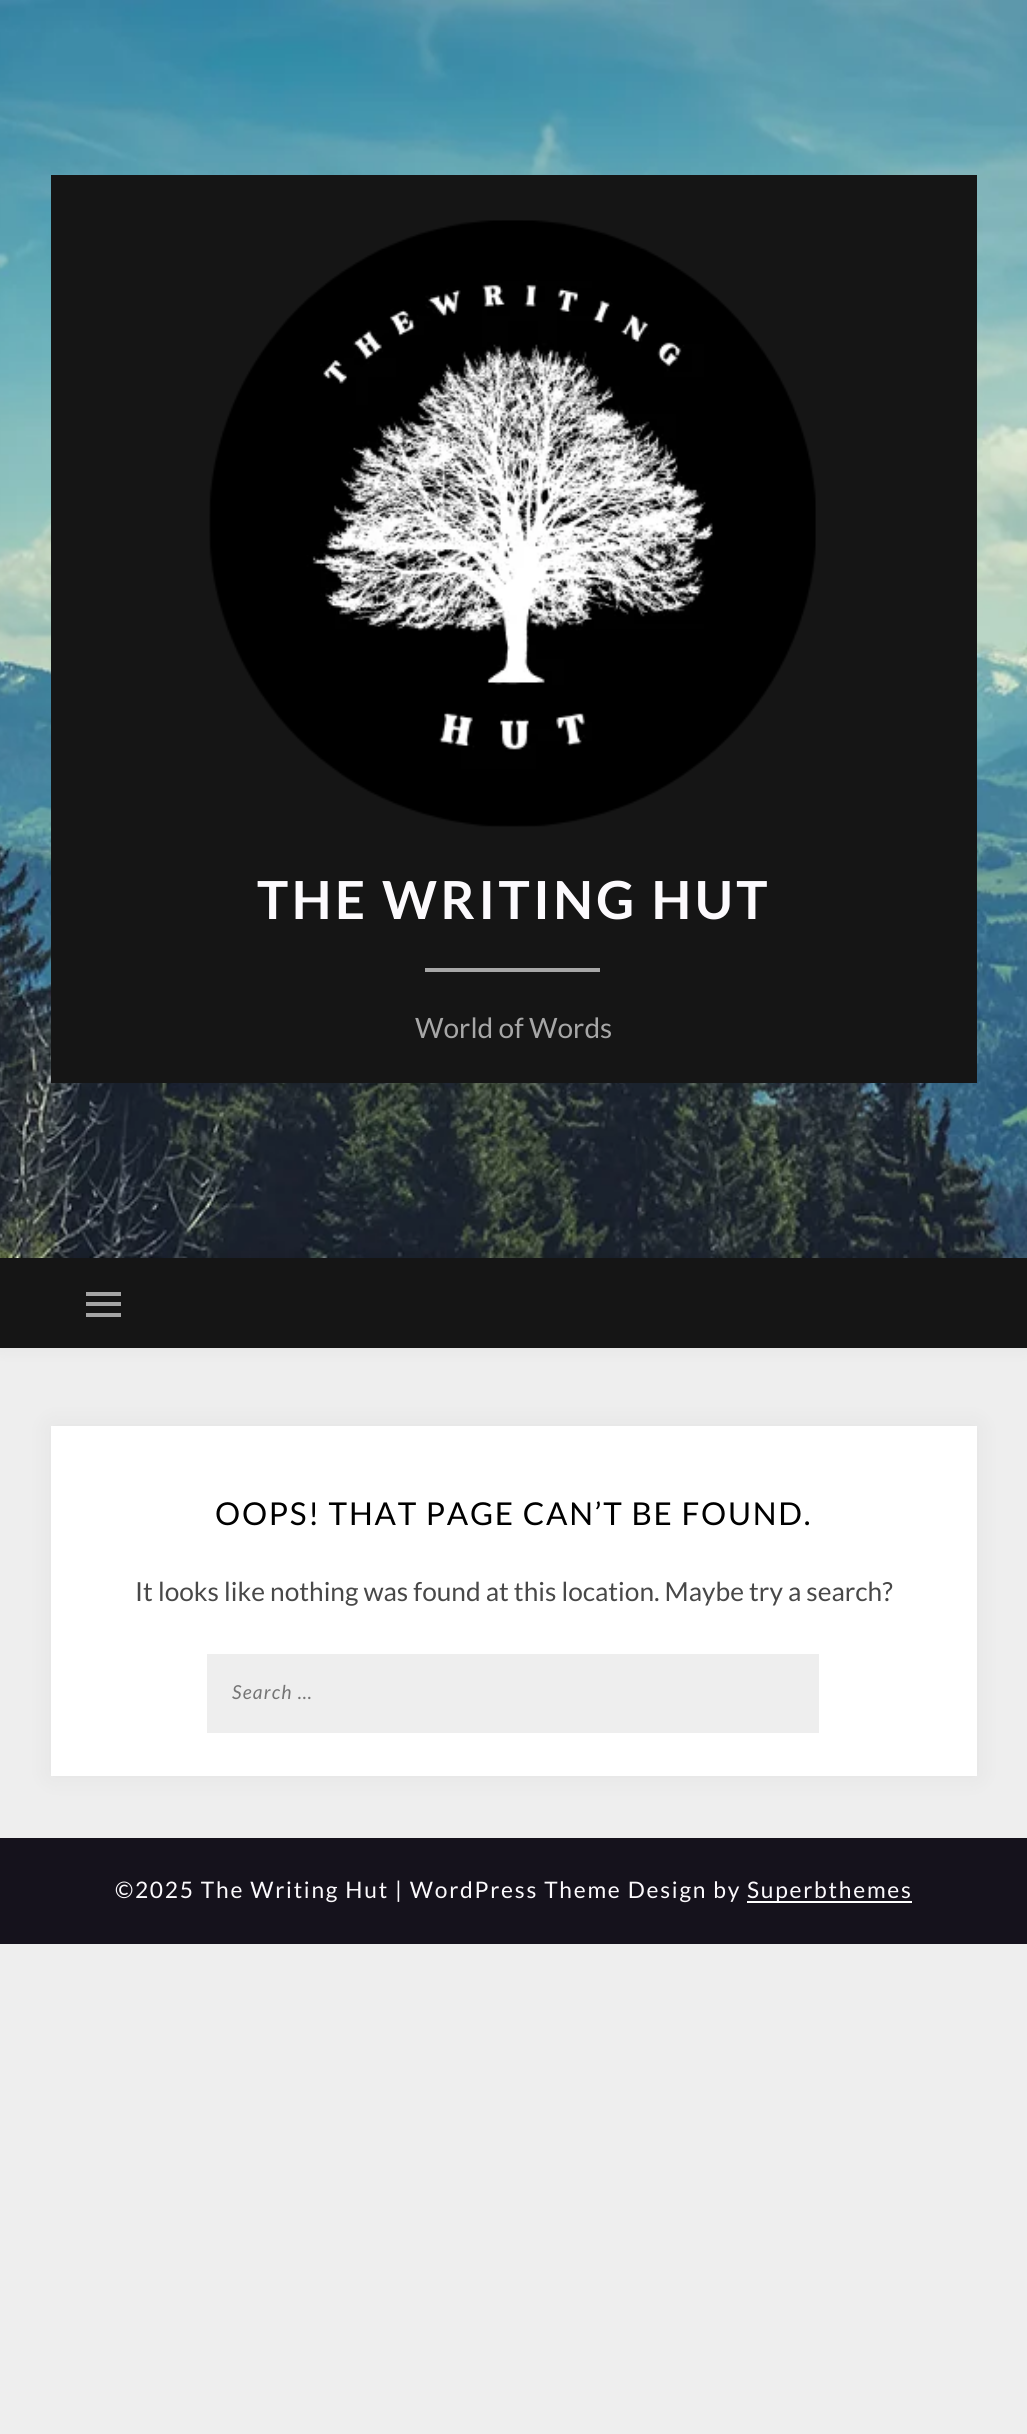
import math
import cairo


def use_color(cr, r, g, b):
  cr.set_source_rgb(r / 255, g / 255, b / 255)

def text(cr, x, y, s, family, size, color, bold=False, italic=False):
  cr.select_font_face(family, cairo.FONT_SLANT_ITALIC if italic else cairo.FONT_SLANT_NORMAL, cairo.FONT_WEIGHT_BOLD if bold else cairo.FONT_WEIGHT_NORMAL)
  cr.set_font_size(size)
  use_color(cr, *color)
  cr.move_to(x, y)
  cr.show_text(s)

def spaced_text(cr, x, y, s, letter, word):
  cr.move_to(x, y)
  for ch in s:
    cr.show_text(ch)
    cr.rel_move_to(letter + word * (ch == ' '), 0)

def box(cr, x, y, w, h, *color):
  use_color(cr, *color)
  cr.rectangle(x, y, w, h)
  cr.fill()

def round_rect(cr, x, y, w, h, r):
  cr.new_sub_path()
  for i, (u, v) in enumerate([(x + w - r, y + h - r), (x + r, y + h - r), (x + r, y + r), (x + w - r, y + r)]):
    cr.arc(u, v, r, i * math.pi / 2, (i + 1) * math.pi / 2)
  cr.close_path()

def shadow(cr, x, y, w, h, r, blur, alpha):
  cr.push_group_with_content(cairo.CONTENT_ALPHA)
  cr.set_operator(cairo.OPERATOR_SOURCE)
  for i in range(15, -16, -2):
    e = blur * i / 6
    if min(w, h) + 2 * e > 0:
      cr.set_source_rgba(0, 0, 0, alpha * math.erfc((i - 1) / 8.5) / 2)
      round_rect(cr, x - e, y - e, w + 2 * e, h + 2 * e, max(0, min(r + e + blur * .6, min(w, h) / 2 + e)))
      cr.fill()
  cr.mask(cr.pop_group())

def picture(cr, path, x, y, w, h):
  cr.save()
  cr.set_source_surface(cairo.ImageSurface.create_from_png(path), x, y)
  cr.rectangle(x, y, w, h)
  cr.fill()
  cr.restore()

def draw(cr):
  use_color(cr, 238, 238, 238)
  cr.paint()
  picture(cr, "img_01.png", 0, 0, 1027, 1258)
  box(cr, 51, 175, 926, 908, 21, 21, 21)
  picture(cr, "img_02.png", 209, 220, 607, 607)
  box(cr, 425, 968, 175, 4, 167, 167, 167)
  use_color(cr, 0, 0, 0)
  shadow(cr, 0, 1258, 1027, 90, 0, 9, 0.05)
  box(cr, 0, 1258, 1027, 90, 21, 21, 21)
  box(cr, 86, 1292, 35, 4, 165, 165, 165)
  box(cr, 86, 1302, 35, 4, 165, 165, 165)
  box(cr, 86, 1313, 35, 4, 165, 165, 165)
  use_color(cr, 0, 0, 0)
  shadow(cr, 51, 1426, 926, 350, 0, 13, 0.05)
  box(cr, 51, 1426, 926, 350, 255, 255, 255)
  box(cr, 207, 1654, 612, 79, 238, 238, 238)
  box(cr, 0, 1838, 1027, 106, 21, 18, 28)
  box(cr, 747, 1901, 165, 2, 255, 255, 255)
  cr.select_font_face("Lato", cairo.FONT_SLANT_NORMAL, cairo.FONT_WEIGHT_BOLD)
  cr.set_font_size(52.5)
  use_color(cr, 252, 250, 253)
  spaced_text(cr, 257, 919, "THE WRITING HUT", 3.5, 0)
  text(cr, 415, 1038, "World of Words", "Lato", 28, (167, 167, 167))
  cr.set_font_size(31.5)
  use_color(cr, 0, 0, 0)
  spaced_text(cr, 215, 1525, "OOPS! THAT PAGE CAN’T BE FOUND.", 1.75, 0)
  text(cr, 135, 1601, "It looks like nothing was found at this location. Maybe try a search?", "Lato", 26.25, (72, 72, 72))
  cr.select_font_face("Lato", cairo.FONT_SLANT_ITALIC)
  cr.set_font_size(19.25)
  use_color(cr, 117, 117, 117)
  spaced_text(cr, 232, 1699, "Search …", 1.25, 0)
  cr.select_font_face("Lato")
  cr.set_font_size(22.75)
  use_color(cr, 252, 250, 253)
  spaced_text(cr, 115, 1898, "©2025 The Writing Hut | WordPress Theme Design by", 1.75, 0)
  spaced_text(cr, 747, 1898, "Superbthemes", 1.75, 0)


surface = cairo.ImageSurface(cairo.FORMAT_RGB24, 1027, 2434)
cr = cairo.Context(surface)
options = cairo.FontOptions()
options.set_hint_metrics(cairo.HINT_METRICS_OFF)
options.set_hint_style(cairo.HINT_STYLE_NONE)
cr.set_font_options(options)
cr.set_miter_limit(4)
draw(cr)
surface.write_to_png("out.png")
